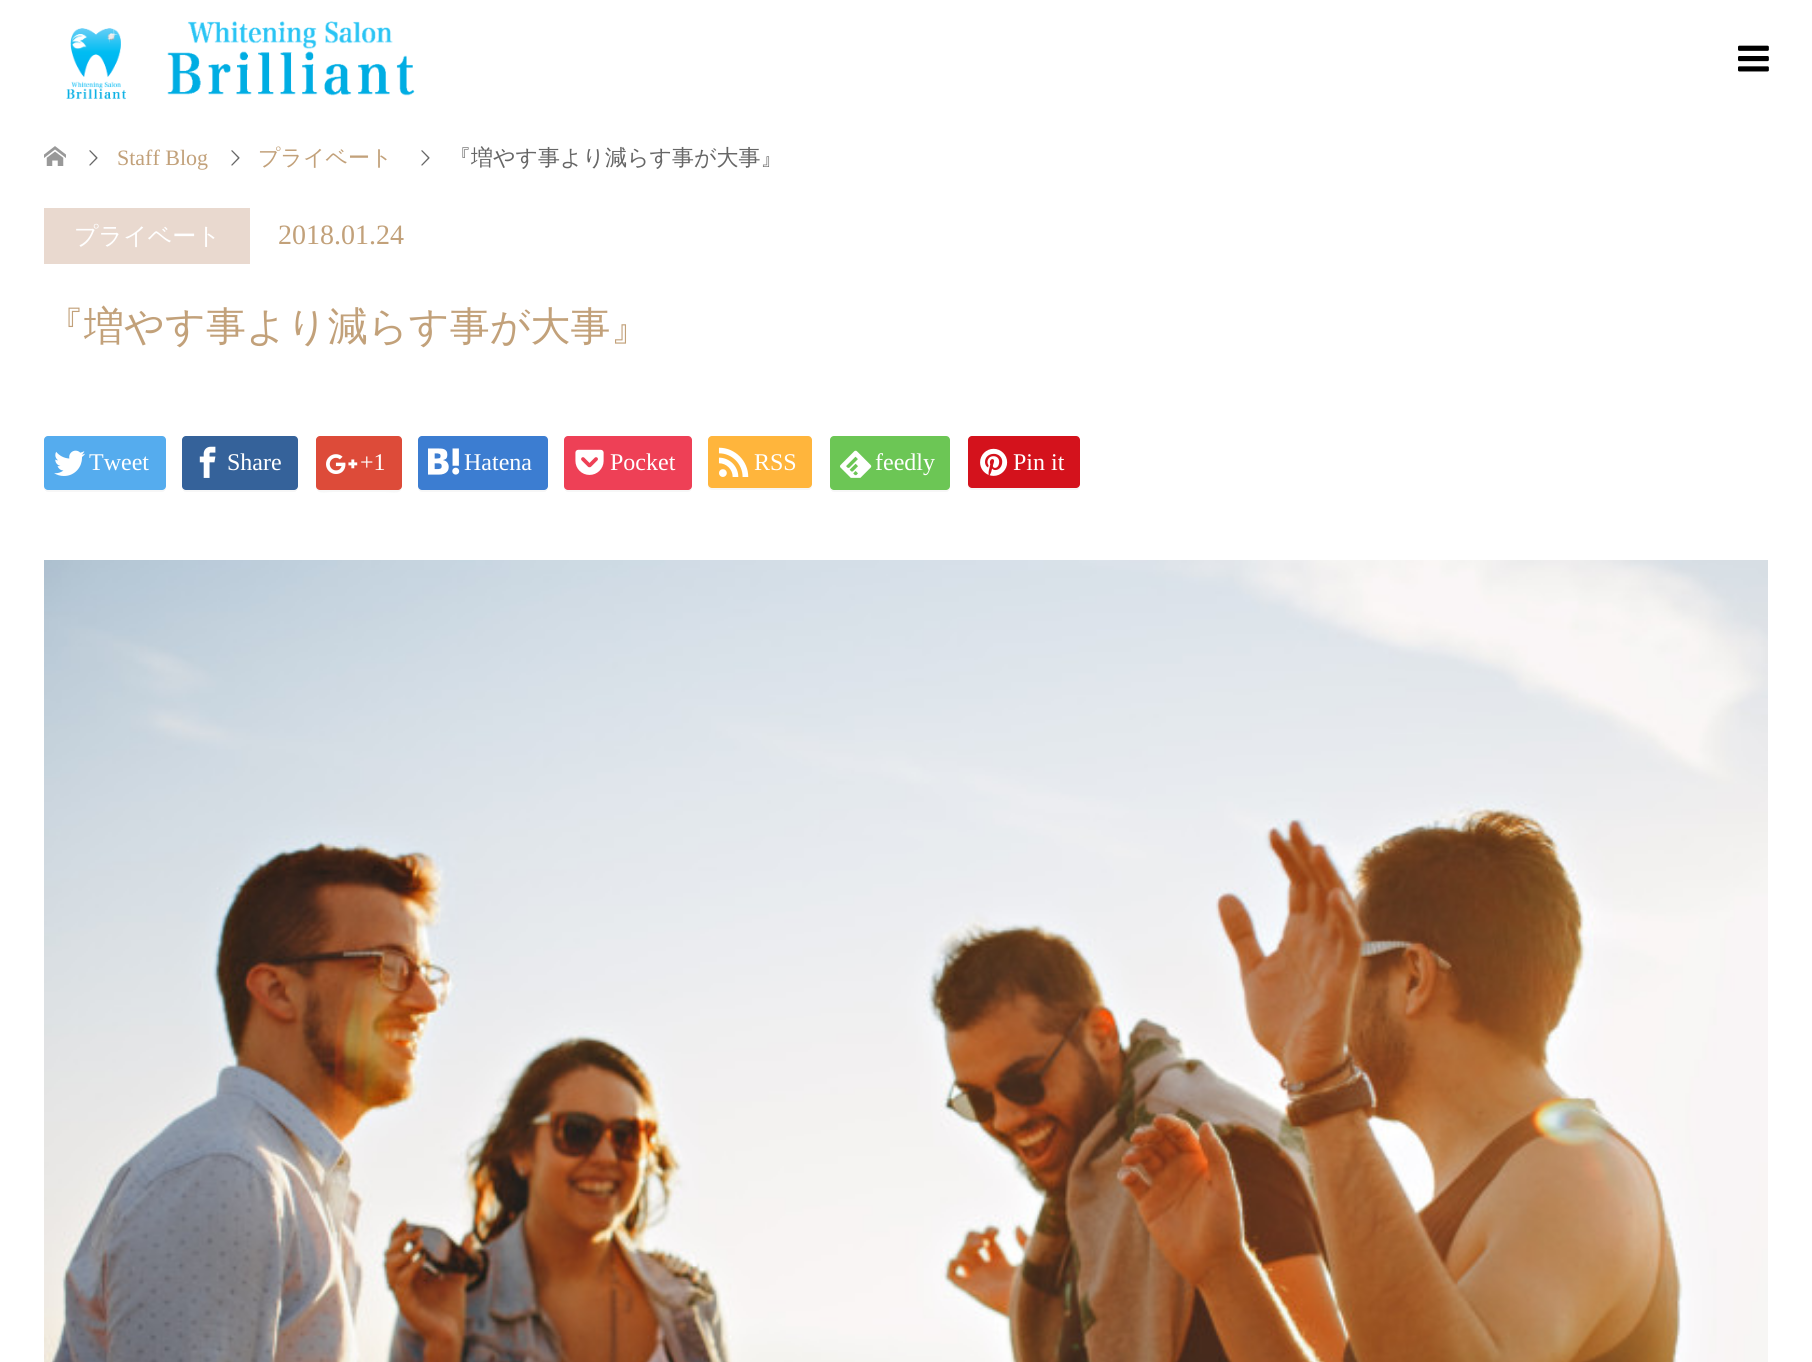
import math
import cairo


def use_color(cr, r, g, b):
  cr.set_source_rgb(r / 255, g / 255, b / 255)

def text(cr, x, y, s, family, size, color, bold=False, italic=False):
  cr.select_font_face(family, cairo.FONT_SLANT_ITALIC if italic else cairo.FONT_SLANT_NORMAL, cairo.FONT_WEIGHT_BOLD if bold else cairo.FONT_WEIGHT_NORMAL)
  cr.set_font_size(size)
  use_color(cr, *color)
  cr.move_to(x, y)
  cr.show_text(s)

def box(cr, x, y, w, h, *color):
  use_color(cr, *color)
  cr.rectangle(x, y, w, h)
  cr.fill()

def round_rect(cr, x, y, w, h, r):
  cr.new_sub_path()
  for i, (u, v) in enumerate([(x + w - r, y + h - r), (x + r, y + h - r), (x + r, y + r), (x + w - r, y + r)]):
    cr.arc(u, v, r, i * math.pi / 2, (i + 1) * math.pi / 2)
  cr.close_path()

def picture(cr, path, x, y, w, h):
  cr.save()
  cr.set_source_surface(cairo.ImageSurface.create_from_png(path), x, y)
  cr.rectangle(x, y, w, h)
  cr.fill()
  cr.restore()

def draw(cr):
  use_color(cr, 255, 255, 255)
  cr.paint()
  picture(cr, "img_01.png", 66, 21, 349, 79)
  picture(cr, "img_02.png", 1738, 45, 31, 27)
  picture(cr, "img_03.png", 44, 146, 22, 20)
  picture(cr, "img_04.png", 89, 150, 9, 16)
  picture(cr, "img_04.png", 231, 150, 9, 16)
  picture(cr, "img_04.png", 421, 150, 9, 16)
  box(cr, 44, 208, 206, 56, 233, 217, 207)
  use_color(cr, 247, 247, 247)
  cr.new_path()
  cr.move_to(44, 486)
  cr.line_to(44, 488)
  cr.curve_to(44, 490, 46, 492, 48, 492)
  cr.line_to(162, 492)
  cr.curve_to(164, 492, 166, 490, 166, 488)
  cr.line_to(166, 486)
  cr.curve_to(166, 488, 164, 490, 162, 490)
  cr.line_to(48, 490)
  cr.curve_to(46, 490, 44, 488, 44, 486)
  cr.close_path()
  cr.fill()
  use_color(cr, 85, 172, 238)
  round_rect(cr, 44, 436, 122, 54, 4)
  cr.fill()
  picture(cr, "img_05.png", 54, 450, 31, 26)
  use_color(cr, 247, 247, 247)
  cr.new_path()
  cr.move_to(182, 486)
  cr.line_to(182, 488)
  cr.curve_to(182, 490, 184, 492, 186, 492)
  cr.line_to(294, 492)
  cr.curve_to(296, 492, 298, 490, 298, 488)
  cr.line_to(298, 486)
  cr.curve_to(298, 488, 296, 490, 294, 490)
  cr.line_to(186, 490)
  cr.curve_to(184, 490, 182, 488, 182, 486)
  cr.close_path()
  cr.fill()
  use_color(cr, 53, 98, 154)
  round_rect(cr, 182, 436, 116, 54, 4)
  cr.fill()
  picture(cr, "img_06.png", 199, 446, 17, 32)
  use_color(cr, 247, 247, 247)
  cr.new_path()
  cr.move_to(316, 486)
  cr.curve_to(316, 495, 325, 492, 333, 492)
  cr.line_to(385, 492)
  cr.curve_to(393, 492, 402, 495, 402, 486)
  cr.curve_to(402, 488, 400, 490, 398, 490)
  cr.line_to(320, 490)
  cr.curve_to(318, 490, 316, 488, 316, 486)
  cr.close_path()
  cr.fill()
  use_color(cr, 221, 75, 57)
  round_rect(cr, 316, 436, 86, 54, 4)
  cr.fill()
  picture(cr, "img_07.png", 326, 454, 32, 20)
  use_color(cr, 247, 247, 247)
  cr.new_path()
  cr.move_to(418, 486)
  cr.line_to(418, 488)
  cr.curve_to(418, 490, 420, 492, 422, 492)
  cr.line_to(544, 492)
  cr.curve_to(546, 492, 548, 490, 548, 488)
  cr.line_to(548, 486)
  cr.curve_to(548, 488, 546, 490, 544, 490)
  cr.line_to(422, 490)
  cr.curve_to(420, 490, 418, 488, 418, 486)
  cr.close_path()
  cr.fill()
  use_color(cr, 60, 125, 209)
  round_rect(cr, 418, 436, 130, 54, 4)
  cr.fill()
  picture(cr, "img_08.png", 428, 448, 32, 27)
  use_color(cr, 247, 247, 247)
  cr.new_path()
  cr.move_to(564, 486)
  cr.line_to(564, 488)
  cr.curve_to(564, 490, 566, 492, 568, 492)
  cr.line_to(688, 492)
  cr.curve_to(690, 492, 692, 490, 692, 488)
  cr.line_to(692, 486)
  cr.curve_to(692, 488, 690, 490, 688, 490)
  cr.line_to(568, 490)
  cr.curve_to(566, 490, 564, 488, 564, 486)
  cr.close_path()
  cr.fill()
  use_color(cr, 238, 64, 86)
  round_rect(cr, 564, 436, 128, 54, 4)
  cr.fill()
  picture(cr, "img_09.png", 575, 449, 29, 26)
  use_color(cr, 247, 247, 247)
  cr.new_path()
  cr.move_to(708, 484)
  cr.line_to(708, 486)
  cr.curve_to(708, 488, 710, 490, 712, 490)
  cr.line_to(808, 490)
  cr.curve_to(810, 490, 812, 488, 812, 486)
  cr.line_to(812, 484)
  cr.curve_to(812, 486, 810, 488, 808, 488)
  cr.line_to(712, 488)
  cr.curve_to(710, 488, 708, 486, 708, 484)
  cr.close_path()
  cr.fill()
  use_color(cr, 255, 181, 60)
  round_rect(cr, 708, 436, 104, 52, 4)
  cr.fill()
  picture(cr, "img_10.png", 718, 447, 31, 30)
  use_color(cr, 247, 247, 247)
  cr.new_path()
  cr.move_to(830, 486)
  cr.line_to(830, 488)
  cr.curve_to(830, 490, 832, 492, 834, 492)
  cr.line_to(946, 492)
  cr.curve_to(948, 492, 950, 490, 950, 488)
  cr.line_to(950, 486)
  cr.curve_to(950, 488, 948, 490, 946, 490)
  cr.line_to(834, 490)
  cr.curve_to(832, 490, 830, 488, 830, 486)
  cr.close_path()
  cr.fill()
  use_color(cr, 108, 198, 85)
  round_rect(cr, 830, 436, 120, 54, 4)
  cr.fill()
  picture(cr, "img_11.png", 840, 450, 32, 28)
  use_color(cr, 247, 247, 247)
  cr.new_path()
  cr.move_to(968, 484)
  cr.line_to(968, 486)
  cr.curve_to(968, 488, 970, 490, 972, 490)
  cr.line_to(1076, 490)
  cr.curve_to(1078, 490, 1080, 488, 1080, 486)
  cr.line_to(1080, 484)
  cr.curve_to(1080, 486, 1078, 488, 1076, 488)
  cr.line_to(972, 488)
  cr.curve_to(970, 488, 968, 486, 968, 484)
  cr.close_path()
  cr.fill()
  use_color(cr, 212, 18, 28)
  round_rect(cr, 968, 436, 112, 52, 4)
  cr.fill()
  picture(cr, "img_12.png", 980, 448, 28, 28)
  picture(cr, "img_13.png", 44, 560, 1724, 802)
  text(cr, 117, 165, "Staff Blog", "Liberation Serif", 22, (194, 161, 122))
  text(cr, 258, 165, "プライベート", "WenQuanYi Zen Hei Medium", 22, (194, 161, 122))
  text(cr, 449, 165, "『増やす事より減らす事が大事』", "WenQuanYi Zen Hei Medium", 22, (102, 102, 102))
  text(cr, 74, 244, "プライベート", "WenQuanYi Zen Hei Medium", 24, (255, 255, 255))
  text(cr, 278, 244, "2018.01.24", "Liberation Serif", 28, (194, 161, 122))
  text(cr, 44, 340, "『増やす事より減らす事が大事』", "WenQuanYi Zen Hei Medium", 40, (194, 161, 122))
  text(cr, 89, 470, "Tweet", "Liberation Serif", 24, (255, 255, 255))
  text(cr, 227, 470, "Share", "Liberation Serif", 24, (255, 255, 255))
  text(cr, 360, 470, "+1", "Liberation Serif", 24, (255, 255, 255))
  text(cr, 464, 470, "Hatena", "Liberation Serif", 24, (255, 255, 255))
  text(cr, 610, 470, "Pocket", "Liberation Serif", 24, (255, 255, 255))
  text(cr, 754, 470, "RSS", "Liberation Serif", 24, (255, 255, 255))
  text(cr, 875, 470, "feedly", "Liberation Serif", 24, (255, 255, 255))
  text(cr, 1013, 470, "Pin it", "Liberation Serif", 24, (255, 255, 255))


surface = cairo.ImageSurface(cairo.FORMAT_RGB24, 1812, 1362)
cr = cairo.Context(surface)
options = cairo.FontOptions()
options.set_hint_metrics(cairo.HINT_METRICS_OFF)
options.set_hint_style(cairo.HINT_STYLE_NONE)
cr.set_font_options(options)
cr.set_miter_limit(4)
draw(cr)
surface.write_to_png("out.png")
